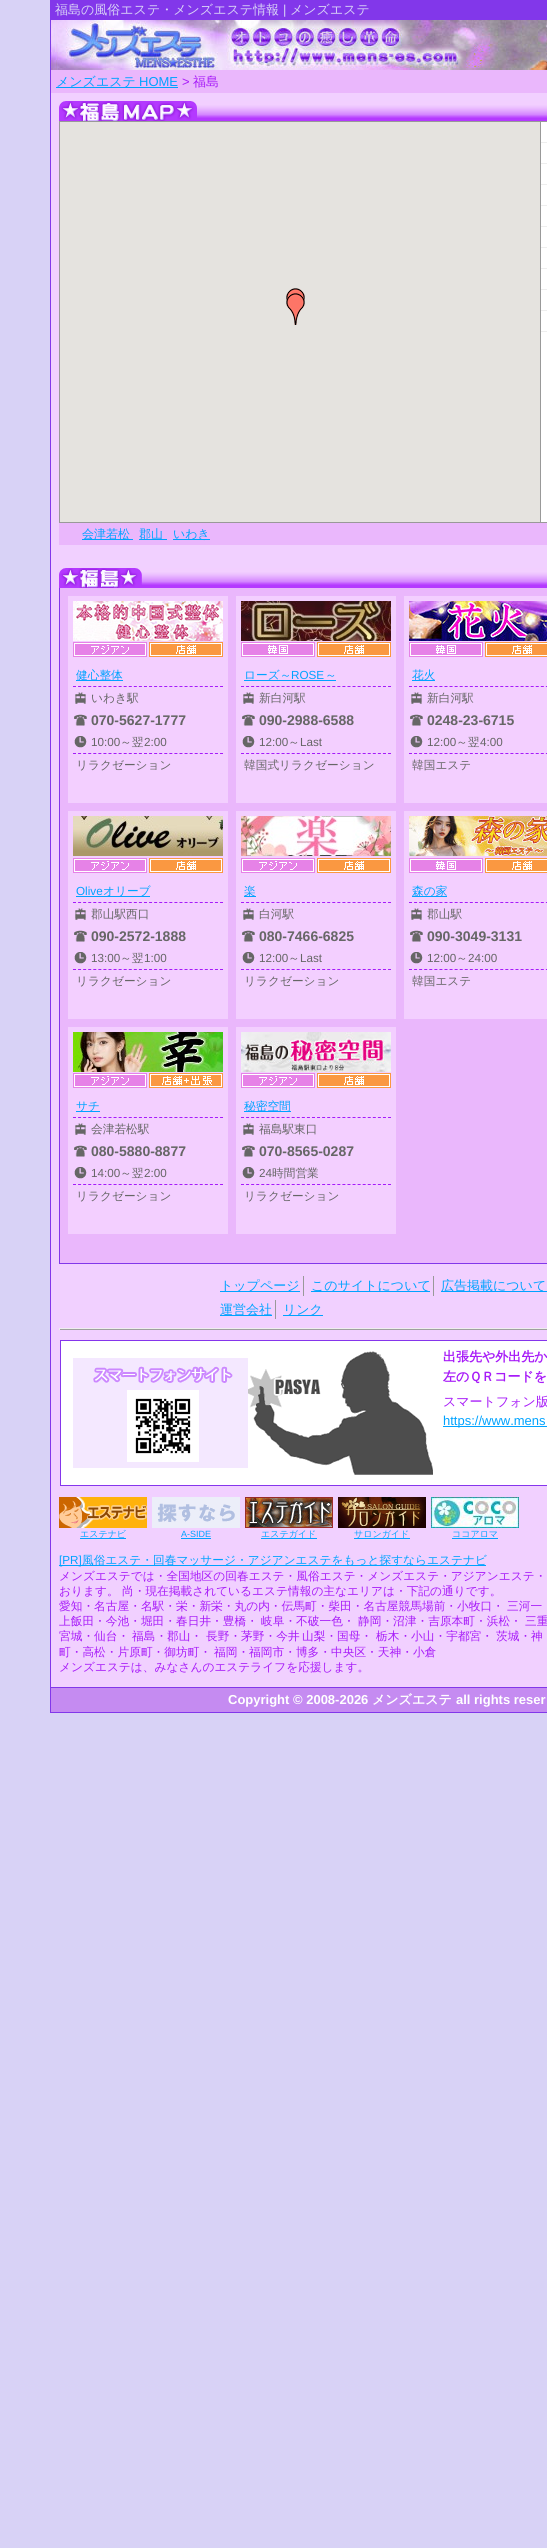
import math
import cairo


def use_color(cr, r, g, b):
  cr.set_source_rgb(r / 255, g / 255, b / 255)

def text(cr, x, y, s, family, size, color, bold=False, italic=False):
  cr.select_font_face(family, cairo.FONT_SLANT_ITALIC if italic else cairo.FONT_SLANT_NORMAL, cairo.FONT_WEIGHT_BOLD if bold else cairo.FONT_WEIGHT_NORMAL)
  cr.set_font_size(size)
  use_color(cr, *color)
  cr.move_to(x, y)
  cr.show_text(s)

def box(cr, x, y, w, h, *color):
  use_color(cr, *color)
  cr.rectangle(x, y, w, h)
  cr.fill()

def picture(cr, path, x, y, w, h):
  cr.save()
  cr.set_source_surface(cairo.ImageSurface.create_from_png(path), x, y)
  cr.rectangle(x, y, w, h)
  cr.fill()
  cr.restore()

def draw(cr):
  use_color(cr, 216, 210, 246)
  cr.paint()
  box(cr, 50, 0, 497, 20, 130, 55, 234)
  picture(cr, "img_01.png", 50, 20, 497, 50)
  box(cr, 51, 70, 496, 23, 234, 183, 252)
  box(cr, 50, 70, 1, 1617, 130, 55, 234)
  box(cr, 56, 87, 122, 1, 0, 163, 255)
  box(cr, 51, 93, 496, 1594, 241, 208, 255)
  picture(cr, "img_02.png", 59, 101, 488, 20)
  cr.rectangle(59.5, 121.5, 481, 401)
  use_color(cr, 153, 153, 153)
  cr.set_line_width(1)
  cr.stroke()
  box(cr, 60, 122, 480, 400, 229, 227, 223)
  picture(cr, "img_03.png", 286, 288, 19, 32)
  picture(cr, "img_04.png", 286, 293, 19, 32)
  box(cr, 541, 121, 6, 402, 255, 255, 255)
  box(cr, 541, 121, 6, 1, 153, 153, 153)
  box(cr, 541, 522, 6, 1, 153, 153, 153)
  box(cr, 541, 142, 6, 1, 238, 238, 238)
  box(cr, 541, 163, 6, 1, 238, 238, 238)
  box(cr, 541, 184, 6, 1, 238, 238, 238)
  box(cr, 541, 205, 6, 1, 238, 238, 238)
  box(cr, 541, 226, 6, 1, 238, 238, 238)
  box(cr, 541, 247, 6, 1, 238, 238, 238)
  box(cr, 541, 268, 6, 1, 238, 238, 238)
  box(cr, 541, 289, 6, 1, 238, 238, 238)
  box(cr, 541, 310, 6, 1, 238, 238, 238)
  box(cr, 541, 331, 6, 1, 238, 238, 238)
  box(cr, 59, 523, 488, 22, 234, 183, 252)
  box(cr, 82, 539, 51, 1, 0, 163, 255)
  box(cr, 139, 539, 28, 1, 0, 163, 255)
  box(cr, 173, 539, 37, 1, 0, 163, 255)
  picture(cr, "img_05.png", 59, 568, 488, 20)
  box(cr, 60, 588, 487, 675, 234, 183, 252)
  box(cr, 59, 1263, 488, 1, 130, 55, 234)
  box(cr, 59, 588, 1, 676, 130, 55, 234)
  box(cr, 68, 596, 160, 207, 243, 207, 255)
  picture(cr, "img_06.png", 73, 601, 150, 40)
  picture(cr, "img_07.png", 73, 642, 74, 15)
  picture(cr, "img_08.png", 149, 642, 74, 15)
  cr.new_path()
  cr.move_to(73, 686.5)
  cr.line_to(223, 686.5)
  use_color(cr, 166, 27, 250)
  cr.set_dash([3, 2.07])
  cr.stroke()
  box(cr, 76, 680, 47, 1, 0, 163, 255)
  picture(cr, "img_09.png", 75, 692, 11, 12)
  picture(cr, "img_10.png", 74, 714, 13, 12)
  picture(cr, "img_11.png", 74, 736, 13, 12)
  cr.new_path()
  cr.move_to(73, 753.5)
  cr.line_to(223, 753.5)
  use_color(cr, 166, 27, 250)
  cr.stroke()
  box(cr, 236, 596, 160, 207, 243, 207, 255)
  picture(cr, "img_12.png", 241, 601, 150, 40)
  picture(cr, "img_13.png", 241, 642, 74, 15)
  picture(cr, "img_08.png", 317, 642, 74, 15)
  cr.new_path()
  cr.move_to(241, 686.5)
  cr.line_to(391, 686.5)
  use_color(cr, 166, 27, 250)
  cr.stroke()
  box(cr, 244, 680, 92, 1, 0, 163, 255)
  picture(cr, "img_09.png", 243, 692, 11, 12)
  picture(cr, "img_10.png", 242, 714, 13, 12)
  picture(cr, "img_11.png", 242, 736, 13, 12)
  cr.new_path()
  cr.move_to(241, 753.5)
  cr.line_to(391, 753.5)
  use_color(cr, 166, 27, 250)
  cr.stroke()
  box(cr, 404, 596, 143, 207, 243, 207, 255)
  picture(cr, "img_14.png", 409, 601, 138, 40)
  picture(cr, "img_13.png", 409, 642, 74, 15)
  picture(cr, "img_15.png", 485, 642, 62, 15)
  cr.new_path()
  cr.move_to(409, 686.5)
  cr.line_to(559, 686.5)
  use_color(cr, 166, 27, 250)
  cr.stroke()
  box(cr, 412, 680, 23, 1, 0, 163, 255)
  picture(cr, "img_09.png", 411, 692, 11, 12)
  picture(cr, "img_10.png", 410, 714, 13, 12)
  picture(cr, "img_11.png", 410, 736, 13, 12)
  cr.new_path()
  cr.move_to(409, 753.5)
  cr.line_to(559, 753.5)
  use_color(cr, 166, 27, 250)
  cr.stroke()
  box(cr, 68, 811, 160, 208, 243, 207, 255)
  picture(cr, "img_16.png", 73, 816, 150, 40)
  picture(cr, "img_07.png", 73, 858, 74, 15)
  picture(cr, "img_08.png", 149, 858, 74, 15)
  cr.new_path()
  cr.move_to(73, 902.5)
  cr.line_to(223, 902.5)
  use_color(cr, 166, 27, 250)
  cr.stroke()
  box(cr, 76, 896, 74, 1, 0, 163, 255)
  picture(cr, "img_09.png", 75, 908, 11, 12)
  picture(cr, "img_10.png", 74, 930, 13, 12)
  picture(cr, "img_11.png", 74, 952, 13, 12)
  cr.new_path()
  cr.move_to(73, 969.5)
  cr.line_to(223, 969.5)
  use_color(cr, 166, 27, 250)
  cr.stroke()
  box(cr, 236, 811, 160, 208, 243, 207, 255)
  picture(cr, "img_17.png", 241, 816, 150, 40)
  picture(cr, "img_07.png", 241, 858, 74, 15)
  picture(cr, "img_08.png", 317, 858, 74, 15)
  cr.new_path()
  cr.move_to(241, 902.5)
  cr.line_to(391, 902.5)
  use_color(cr, 166, 27, 250)
  cr.stroke()
  box(cr, 244, 896, 12, 1, 0, 163, 255)
  picture(cr, "img_09.png", 243, 908, 11, 12)
  picture(cr, "img_10.png", 242, 930, 13, 12)
  picture(cr, "img_11.png", 242, 952, 13, 12)
  cr.new_path()
  cr.move_to(241, 969.5)
  cr.line_to(391, 969.5)
  use_color(cr, 166, 27, 250)
  cr.stroke()
  box(cr, 404, 811, 143, 208, 243, 207, 255)
  picture(cr, "img_18.png", 409, 816, 138, 40)
  picture(cr, "img_13.png", 409, 858, 74, 15)
  picture(cr, "img_15.png", 485, 858, 62, 15)
  cr.new_path()
  cr.move_to(409, 902.5)
  cr.line_to(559, 902.5)
  use_color(cr, 166, 27, 250)
  cr.stroke()
  box(cr, 412, 896, 35, 1, 0, 163, 255)
  picture(cr, "img_09.png", 411, 908, 11, 12)
  picture(cr, "img_10.png", 410, 930, 13, 12)
  picture(cr, "img_11.png", 410, 952, 13, 12)
  cr.new_path()
  cr.move_to(409, 969.5)
  cr.line_to(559, 969.5)
  use_color(cr, 166, 27, 250)
  cr.stroke()
  box(cr, 68, 1027, 160, 207, 243, 207, 255)
  picture(cr, "img_19.png", 73, 1032, 150, 40)
  picture(cr, "img_07.png", 73, 1073, 74, 15)
  picture(cr, "img_20.png", 149, 1073, 74, 15)
  cr.new_path()
  cr.move_to(73, 1117.5)
  cr.line_to(223, 1117.5)
  use_color(cr, 166, 27, 250)
  cr.stroke()
  box(cr, 76, 1111, 24, 1, 0, 163, 255)
  picture(cr, "img_09.png", 75, 1123, 11, 12)
  picture(cr, "img_10.png", 74, 1145, 13, 12)
  picture(cr, "img_11.png", 74, 1167, 13, 12)
  cr.new_path()
  cr.move_to(73, 1184.5)
  cr.line_to(223, 1184.5)
  use_color(cr, 166, 27, 250)
  cr.stroke()
  box(cr, 236, 1027, 160, 207, 243, 207, 255)
  picture(cr, "img_21.png", 241, 1032, 150, 40)
  picture(cr, "img_07.png", 241, 1073, 74, 15)
  picture(cr, "img_08.png", 317, 1073, 74, 15)
  cr.new_path()
  cr.move_to(241, 1117.5)
  cr.line_to(391, 1117.5)
  use_color(cr, 166, 27, 250)
  cr.stroke()
  box(cr, 244, 1111, 47, 1, 0, 163, 255)
  picture(cr, "img_09.png", 243, 1123, 11, 12)
  picture(cr, "img_10.png", 242, 1145, 13, 12)
  picture(cr, "img_11.png", 242, 1167, 13, 12)
  cr.new_path()
  cr.move_to(241, 1184.5)
  cr.line_to(391, 1184.5)
  use_color(cr, 166, 27, 250)
  cr.stroke()
  box(cr, 303, 1276, 1, 20, 153, 153, 153)
  box(cr, 220, 1291, 80, 1, 0, 163, 255)
  box(cr, 433, 1276, 1, 20, 153, 153, 153)
  box(cr, 311, 1291, 119, 1, 0, 163, 255)
  box(cr, 441, 1291, 106, 1, 0, 163, 255)
  box(cr, 275, 1300, 1, 19, 153, 153, 153)
  box(cr, 220, 1315, 52, 1, 0, 163, 255)
  box(cr, 283, 1315, 40, 1, 0, 163, 255)
  box(cr, 59, 1328, 488, 1, 238, 238, 238)
  box(cr, 59, 1329, 488, 1, 159, 159, 159)
  box(cr, 59, 1328, 1, 2, 238, 238, 238)
  use_color(cr, 255, 255, 255)
  cr.rectangle(60.5, 1340.5, 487, 145)
  cr.fill_preserve()
  use_color(cr, 133, 53, 236)
  cr.set_dash([])
  cr.stroke()
  picture(cr, "img_22.png", 73, 1351, 360, 124)
  box(cr, 443, 1426, 104, 1, 0, 163, 255)
  picture(cr, "img_23.png", 59, 1497, 88, 31)
  box(cr, 80, 1538, 46, 1, 0, 163, 255)
  picture(cr, "img_24.png", 152, 1497, 88, 31)
  box(cr, 181, 1538, 30, 1, 0, 163, 255)
  picture(cr, "img_25.png", 245, 1497, 88, 31)
  box(cr, 261, 1538, 56, 1, 0, 163, 255)
  picture(cr, "img_26.png", 338, 1497, 88, 31)
  box(cr, 354, 1538, 56, 1, 0, 163, 255)
  picture(cr, "img_27.png", 431, 1497, 88, 31)
  box(cr, 452, 1538, 46, 1, 0, 163, 255)
  box(cr, 59, 1565, 427, 1, 0, 163, 255)
  use_color(cr, 197, 139, 241)
  cr.rectangle(50.5, 1687.5, 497, 25)
  cr.fill_preserve()
  use_color(cr, 130, 55, 234)
  cr.stroke()
  text(cr, 55, 14, "福島の風俗エステ・メンズエステ情報", "WenQuanYi Zen Hei Medium", 13, (216, 210, 246))
  text(cr, 283, 14, "|", "Liberation Sans", 13, (216, 210, 246))
  text(cr, 290, 14, "メンズエステ", "WenQuanYi Zen Hei Medium", 13, (216, 210, 246))
  text(cr, 56, 86, "メンズエステ", "WenQuanYi Zen Hei Medium", 13, (0, 163, 255))
  text(cr, 139, 86, "HOME", "Liberation Sans", 13, (0, 163, 255))
  text(cr, 182, 86, ">", "Liberation Sans", 13, (167, 27, 248))
  text(cr, 193, 86, "福島", "WenQuanYi Zen Hei Medium", 13, (167, 27, 248))
  text(cr, 82, 538, "会津若松", "WenQuanYi Zen Hei Medium", 12, (0, 163, 255))
  text(cr, 139, 538, "郡山", "WenQuanYi Zen Hei Medium", 12, (0, 163, 255))
  text(cr, 173, 538, "いわき", "WenQuanYi Zen Hei Medium", 12, (0, 163, 255))
  text(cr, 76, 679, "健心整体", "WenQuanYi Zen Hei Medium", 11.7, (0, 163, 255))
  text(cr, 91, 702, "いわき駅", "WenQuanYi Zen Hei Medium", 11.7, (102, 102, 102))
  text(cr, 91, 725, "070-5627-1777", "Liberation Sans", 14, (102, 102, 102), bold=True)
  text(cr, 91, 746, "10:00", "Liberation Sans", 11.7, (102, 102, 102))
  text(cr, 120, 746, "～翌", "WenQuanYi Zen Hei Medium", 11.7, (102, 102, 102))
  text(cr, 144, 746, "2:00", "Liberation Sans", 11.7, (102, 102, 102))
  text(cr, 76, 769, "リラクゼーション", "WenQuanYi Zen Hei Medium", 11.7, (102, 102, 102))
  text(cr, 244, 679, "ローズ～", "WenQuanYi Zen Hei Medium", 11.7, (0, 163, 255))
  text(cr, 291, 679, "ROSE", "Liberation Sans", 11.7, (0, 163, 255))
  text(cr, 325, 679, "～", "WenQuanYi Zen Hei Medium", 11.7, (0, 163, 255))
  text(cr, 259, 702, "新白河駅", "WenQuanYi Zen Hei Medium", 11.7, (102, 102, 102))
  text(cr, 259, 725, "090-2988-6588", "Liberation Sans", 14, (102, 102, 102), bold=True)
  text(cr, 259, 746, "12:00", "Liberation Sans", 11.7, (102, 102, 102))
  text(cr, 288, 746, "～", "WenQuanYi Zen Hei Medium", 11.7, (102, 102, 102))
  text(cr, 300, 746, "Last", "Liberation Sans", 11.7, (102, 102, 102))
  text(cr, 244, 769, "韓国式リラクゼーション", "WenQuanYi Zen Hei Medium", 11.7, (102, 102, 102))
  text(cr, 412, 679, "花火", "WenQuanYi Zen Hei Medium", 11.7, (0, 163, 255))
  text(cr, 427, 702, "新白河駅", "WenQuanYi Zen Hei Medium", 11.7, (102, 102, 102))
  text(cr, 427, 725, "0248-23-6715", "Liberation Sans", 14, (102, 102, 102), bold=True)
  text(cr, 427, 746, "12:00", "Liberation Sans", 11.7, (102, 102, 102))
  text(cr, 456, 746, "～翌", "WenQuanYi Zen Hei Medium", 11.7, (102, 102, 102))
  text(cr, 480, 746, "4:00", "Liberation Sans", 11.7, (102, 102, 102))
  text(cr, 412, 769, "韓国エステ", "WenQuanYi Zen Hei Medium", 11.7, (102, 102, 102))
  text(cr, 76, 895, "Olive", "Liberation Sans", 11.7, (0, 163, 255))
  text(cr, 103, 895, "オリーブ", "WenQuanYi Zen Hei Medium", 11.7, (0, 163, 255))
  text(cr, 91, 918, "郡山駅西口", "WenQuanYi Zen Hei Medium", 11.7, (102, 102, 102))
  text(cr, 91, 941, "090-2572-1888", "Liberation Sans", 14, (102, 102, 102), bold=True)
  text(cr, 91, 962, "13:00", "Liberation Sans", 11.7, (102, 102, 102))
  text(cr, 120, 962, "～翌", "WenQuanYi Zen Hei Medium", 11.7, (102, 102, 102))
  text(cr, 144, 962, "1:00", "Liberation Sans", 11.7, (102, 102, 102))
  text(cr, 76, 985, "リラクゼーション", "WenQuanYi Zen Hei Medium", 11.7, (102, 102, 102))
  text(cr, 244, 895, "楽", "WenQuanYi Zen Hei Medium", 11.7, (0, 163, 255))
  text(cr, 259, 918, "白河駅", "WenQuanYi Zen Hei Medium", 11.7, (102, 102, 102))
  text(cr, 259, 941, "080-7466-6825", "Liberation Sans", 14, (102, 102, 102), bold=True)
  text(cr, 259, 962, "12:00", "Liberation Sans", 11.7, (102, 102, 102))
  text(cr, 288, 962, "～", "WenQuanYi Zen Hei Medium", 11.7, (102, 102, 102))
  text(cr, 300, 962, "Last", "Liberation Sans", 11.7, (102, 102, 102))
  text(cr, 244, 985, "リラクゼーション", "WenQuanYi Zen Hei Medium", 11.7, (102, 102, 102))
  text(cr, 412, 895, "森の家", "WenQuanYi Zen Hei Medium", 11.7, (0, 163, 255))
  text(cr, 427, 918, "郡山駅", "WenQuanYi Zen Hei Medium", 11.7, (102, 102, 102))
  text(cr, 427, 941, "090-3049-3131", "Liberation Sans", 14, (102, 102, 102), bold=True)
  text(cr, 427, 962, "12:00", "Liberation Sans", 11.7, (102, 102, 102))
  text(cr, 456, 962, "～", "WenQuanYi Zen Hei Medium", 11.7, (102, 102, 102))
  text(cr, 468, 962, "24:00", "Liberation Sans", 11.7, (102, 102, 102))
  text(cr, 412, 985, "韓国エステ", "WenQuanYi Zen Hei Medium", 11.7, (102, 102, 102))
  text(cr, 76, 1110, "サチ", "WenQuanYi Zen Hei Medium", 11.7, (0, 163, 255))
  text(cr, 91, 1133, "会津若松駅", "WenQuanYi Zen Hei Medium", 11.7, (102, 102, 102))
  text(cr, 91, 1156, "080-5880-8877", "Liberation Sans", 14, (102, 102, 102), bold=True)
  text(cr, 91, 1177, "14:00", "Liberation Sans", 11.7, (102, 102, 102))
  text(cr, 120, 1177, "～翌", "WenQuanYi Zen Hei Medium", 11.7, (102, 102, 102))
  text(cr, 144, 1177, "2:00", "Liberation Sans", 11.7, (102, 102, 102))
  text(cr, 76, 1200, "リラクゼーション", "WenQuanYi Zen Hei Medium", 11.7, (102, 102, 102))
  text(cr, 244, 1110, "秘密空間", "WenQuanYi Zen Hei Medium", 11.7, (0, 163, 255))
  text(cr, 259, 1133, "福島駅東口", "WenQuanYi Zen Hei Medium", 11.7, (102, 102, 102))
  text(cr, 259, 1156, "070-8565-0287", "Liberation Sans", 14, (102, 102, 102), bold=True)
  text(cr, 259, 1177, "24", "Liberation Sans", 11.7, (102, 102, 102))
  text(cr, 272, 1177, "時間営業", "WenQuanYi Zen Hei Medium", 11.7, (102, 102, 102))
  text(cr, 244, 1200, "リラクゼーション", "WenQuanYi Zen Hei Medium", 11.7, (102, 102, 102))
  text(cr, 220, 1290, "トップページ", "WenQuanYi Zen Hei Medium", 13, (0, 163, 255))
  text(cr, 311, 1290, "このサイトについて", "WenQuanYi Zen Hei Medium", 13, (0, 163, 255))
  text(cr, 441, 1290, "広告掲載について", "WenQuanYi Zen Hei Medium", 13, (0, 163, 255))
  text(cr, 220, 1314, "運営会社", "WenQuanYi Zen Hei Medium", 13, (0, 163, 255))
  text(cr, 283, 1314, "リンク", "WenQuanYi Zen Hei Medium", 13, (0, 163, 255))
  text(cr, 443, 1361, "出張先や外出先か", "WenQuanYi Zen Hei", 13, (167, 27, 248), bold=True)
  text(cr, 443, 1381, "左のＱＲコードを", "WenQuanYi Zen Hei", 13, (167, 27, 248), bold=True)
  text(cr, 443, 1406, "スマートフォン版", "WenQuanYi Zen Hei Medium", 13, (167, 27, 248))
  text(cr, 443, 1425, "https://www.mens", "Liberation Sans", 13, (0, 163, 255))
  text(cr, 80, 1537, "エステナビ", "WenQuanYi Zen Hei Medium", 9, (0, 163, 255))
  text(cr, 181, 1537, "A-SIDE", "Liberation Sans", 9, (0, 163, 255))
  text(cr, 261, 1537, "エステガイド", "WenQuanYi Zen Hei Medium", 9, (0, 163, 255))
  text(cr, 354, 1537, "サロンガイド", "WenQuanYi Zen Hei Medium", 9, (0, 163, 255))
  text(cr, 452, 1537, "ココアロマ", "WenQuanYi Zen Hei Medium", 9, (0, 163, 255))
  text(cr, 59, 1564, "[PR]", "Liberation Sans", 11.7, (0, 163, 255))
  text(cr, 82, 1564, "風俗エステ・回春マッサージ・アジアンエステをもっと探すならエステナビ", "WenQuanYi Zen Hei Medium", 11.7, (0, 163, 255))
  text(cr, 59, 1580, "メンズエステでは・全国地区の回春エステ・風俗エステ・メンズエステ・アジアンエステ・", "WenQuanYi Zen Hei Medium", 11.7, (167, 27, 248))
  text(cr, 59, 1595, "おります。", "WenQuanYi Zen Hei Medium", 11.7, (167, 27, 248))
  text(cr, 122, 1595, "尚・現在掲載されているエステ情報の主なエリアは・下記の通りです。", "WenQuanYi Zen Hei Medium", 11.7, (167, 27, 248))
  text(cr, 59, 1610, "愛知・名古屋・名駅・栄・新栄・丸の内・伝馬町・柴田・名古屋競馬場前・小牧口・", "WenQuanYi Zen Hei Medium", 11.7, (167, 27, 248))
  text(cr, 507, 1610, "三河一", "WenQuanYi Zen Hei Medium", 11.7, (167, 27, 248))
  text(cr, 59, 1625, "上飯田・今池・堀田・春日井・豊橋・", "WenQuanYi Zen Hei Medium", 11.7, (167, 27, 248))
  text(cr, 261, 1625, "岐阜・不破一色・", "WenQuanYi Zen Hei Medium", 11.7, (167, 27, 248))
  text(cr, 358, 1625, "静岡・沼津・吉原本町・浜松・", "WenQuanYi Zen Hei Medium", 11.7, (167, 27, 248))
  text(cr, 525, 1625, "三重", "WenQuanYi Zen Hei Medium", 11.7, (167, 27, 248))
  text(cr, 59, 1640, "宮城・仙台・", "WenQuanYi Zen Hei Medium", 11.7, (167, 27, 248))
  text(cr, 132, 1640, "福島・郡山・", "WenQuanYi Zen Hei Medium", 11.7, (167, 27, 248))
  text(cr, 206, 1640, "長野・茅野・今井", "WenQuanYi Zen Hei Medium", 11.7, (167, 27, 248))
  text(cr, 302, 1640, "山梨・国母・", "WenQuanYi Zen Hei Medium", 11.7, (167, 27, 248))
  text(cr, 376, 1640, "栃木・小山・宇都宮・", "WenQuanYi Zen Hei Medium", 11.7, (167, 27, 248))
  text(cr, 496, 1640, "茨城・神", "WenQuanYi Zen Hei Medium", 11.7, (167, 27, 248))
  text(cr, 59, 1656, "町・高松・片原町・御坊町・", "WenQuanYi Zen Hei Medium", 11.7, (167, 27, 248))
  text(cr, 214, 1656, "福岡・福岡市・博多・中央区・天神・小倉", "WenQuanYi Zen Hei Medium", 11.7, (167, 27, 248))
  text(cr, 59, 1671, "メンズエステは、みなさんのエステライフを応援します。", "WenQuanYi Zen Hei Medium", 11.7, (167, 27, 248))
  text(cr, 228, 1704, "Copyright © 2008-2026", "Liberation Sans", 13, (255, 255, 255), bold=True)
  text(cr, 372, 1704, "メンズエステ", "WenQuanYi Zen Hei", 13, (255, 255, 255), bold=True)
  text(cr, 456, 1704, "all rights reser", "Liberation Sans", 13, (255, 255, 255), bold=True)


surface = cairo.ImageSurface(cairo.FORMAT_RGB24, 547, 2548)
cr = cairo.Context(surface)
options = cairo.FontOptions()
options.set_hint_metrics(cairo.HINT_METRICS_OFF)
options.set_hint_style(cairo.HINT_STYLE_NONE)
cr.set_font_options(options)
cr.set_miter_limit(4)
draw(cr)
surface.write_to_png("out.png")
